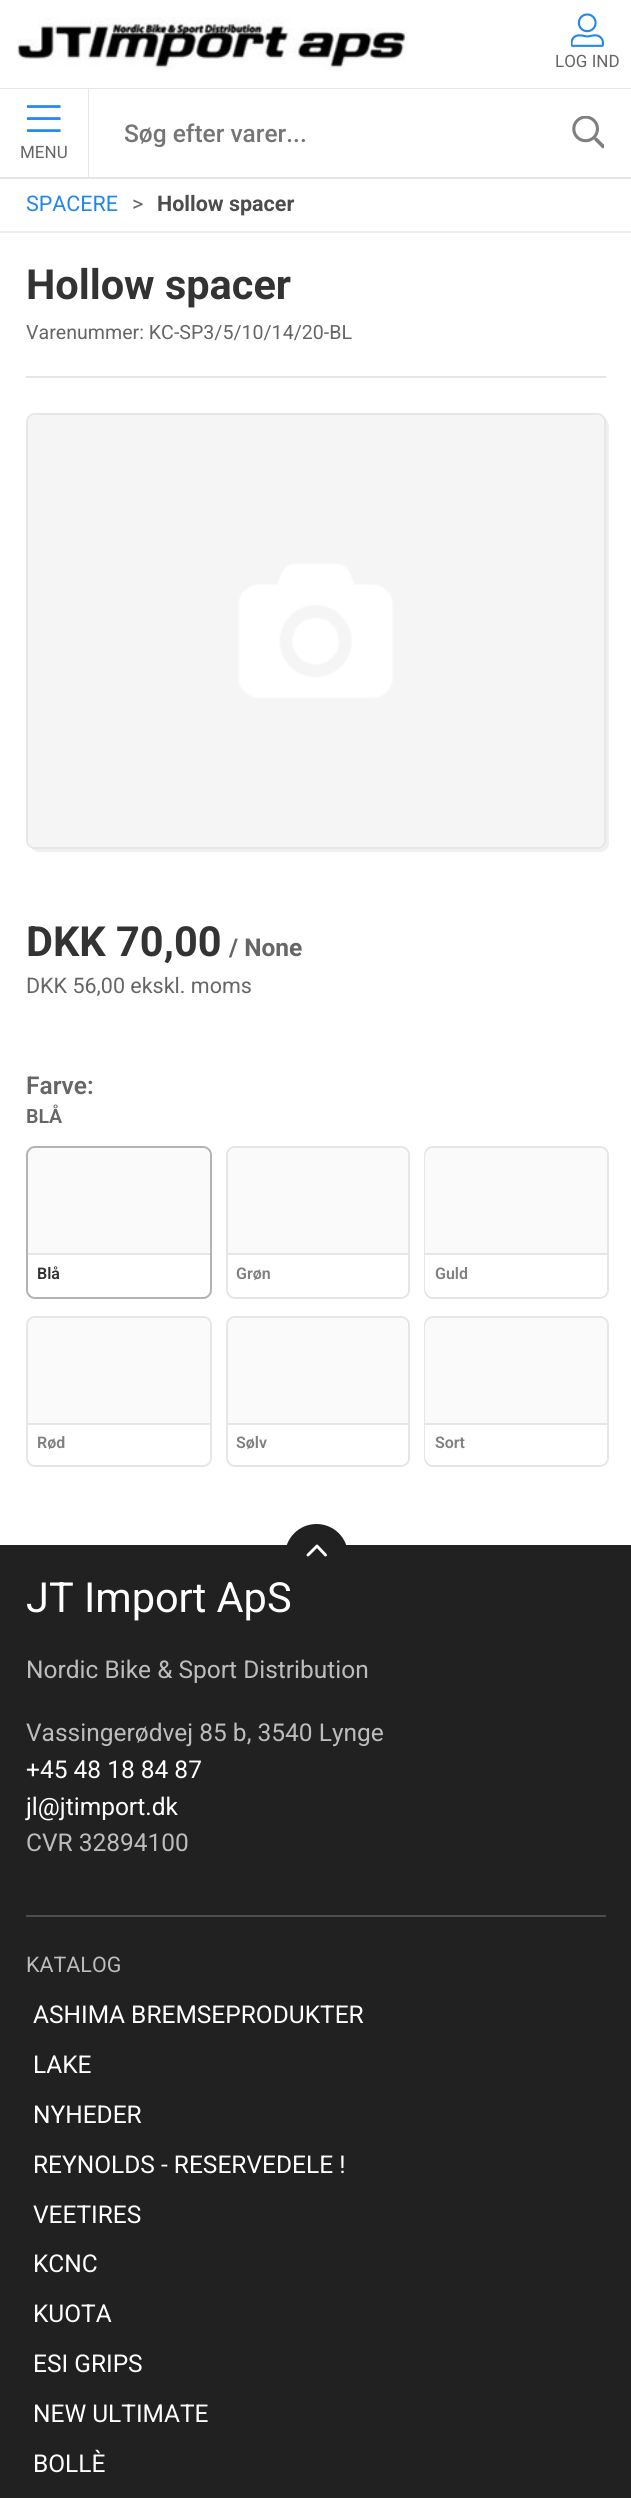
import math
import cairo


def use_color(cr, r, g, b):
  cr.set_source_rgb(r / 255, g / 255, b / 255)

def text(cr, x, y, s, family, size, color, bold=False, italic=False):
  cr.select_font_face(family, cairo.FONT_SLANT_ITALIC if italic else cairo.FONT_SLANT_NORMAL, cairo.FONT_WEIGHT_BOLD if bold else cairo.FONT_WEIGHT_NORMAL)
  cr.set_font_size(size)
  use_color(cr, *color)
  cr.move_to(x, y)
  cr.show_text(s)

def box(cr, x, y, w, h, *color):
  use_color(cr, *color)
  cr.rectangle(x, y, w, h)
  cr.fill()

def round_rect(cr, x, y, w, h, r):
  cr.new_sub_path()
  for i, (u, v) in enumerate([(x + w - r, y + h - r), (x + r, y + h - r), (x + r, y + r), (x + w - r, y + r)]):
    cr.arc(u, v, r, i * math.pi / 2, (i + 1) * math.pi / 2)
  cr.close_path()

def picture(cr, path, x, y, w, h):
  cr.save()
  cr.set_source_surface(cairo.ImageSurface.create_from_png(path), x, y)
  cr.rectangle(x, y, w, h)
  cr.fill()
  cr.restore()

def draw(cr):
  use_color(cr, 255, 255, 255)
  cr.paint()
  box(cr, 0, 88, 631, 1, 230, 230, 230)
  picture(cr, "img_01.png", 17, 17, 391, 53)
  picture(cr, "img_02.png", 571, 13, 33, 34)
  box(cr, 0, 177, 631, 2, 230, 230, 230)
  picture(cr, "img_03.png", 572, 116, 32, 33)
  box(cr, 88, 89, 1, 88, 230, 230, 230)
  picture(cr, "img_04.png", 26, 105, 35, 27)
  box(cr, 0, 231, 631, 2, 236, 236, 236)
  box(cr, 26, 376, 580, 2, 230, 230, 230)
  use_color(cr, 240, 240, 240)
  cr.new_path()
  cr.move_to(32, 848)
  cr.curve_to(33, 850, 36, 852, 39, 852)
  cr.line_to(600, 852)
  cr.curve_to(605, 852, 609, 848, 609, 843)
  cr.line_to(609, 426)
  cr.curve_to(609, 423, 607, 420, 605, 418)
  cr.line_to(606, 422)
  cr.line_to(606, 840)
  cr.curve_to(606, 845, 602, 849, 597, 849)
  cr.line_to(35, 849)
  cr.close_path()
  cr.fill()
  round_rect(cr, 27, 414, 578, 434, 8)
  cr.set_source_rgba(0, 0, 0, 0.1)
  cr.stroke()
  picture(cr, "img_05.png", 28, 415, 576, 432)
  round_rect(cr, 27, 1147, 184, 151, 8)
  use_color(cr, 179, 179, 179)
  cr.stroke()
  use_color(cr, 250, 250, 250)
  cr.new_path()
  cr.move_to(37, 1148)
  cr.line_to(201, 1148)
  cr.curve_to(206, 1148, 210, 1152, 210, 1157)
  cr.line_to(210, 1253)
  cr.line_to(28, 1253)
  cr.line_to(28, 1157)
  cr.curve_to(28, 1152, 32, 1148, 37, 1148)
  cr.close_path()
  cr.fill()
  use_color(cr, 255, 255, 255)
  cr.new_path()
  cr.move_to(28, 1253)
  cr.line_to(210, 1253)
  cr.line_to(210, 1288)
  cr.curve_to(210, 1293, 206, 1297, 201, 1297)
  cr.line_to(37, 1297)
  cr.curve_to(32, 1297, 28, 1293, 28, 1288)
  cr.close_path()
  cr.fill()
  box(cr, 28, 1253, 182, 2, 230, 230, 230)
  round_rect(cr, 227, 1147, 182, 151, 8)
  cr.stroke()
  use_color(cr, 250, 250, 250)
  cr.new_path()
  cr.move_to(237, 1148)
  cr.line_to(399, 1148)
  cr.curve_to(404, 1148, 408, 1152, 408, 1157)
  cr.line_to(408, 1253)
  cr.line_to(228, 1253)
  cr.line_to(228, 1157)
  cr.curve_to(228, 1152, 232, 1148, 237, 1148)
  cr.close_path()
  cr.fill()
  box(cr, 228, 1253, 180, 2, 230, 230, 230)
  round_rect(cr, 425, 1147, 183, 151, 8)
  cr.stroke()
  use_color(cr, 250, 250, 250)
  cr.new_path()
  cr.move_to(434, 1148)
  cr.line_to(598, 1148)
  cr.curve_to(603, 1148, 607, 1152, 607, 1157)
  cr.line_to(607, 1253)
  cr.line_to(425, 1253)
  cr.line_to(425, 1157)
  cr.curve_to(425, 1152, 429, 1148, 434, 1148)
  cr.close_path()
  cr.fill()
  use_color(cr, 255, 255, 255)
  cr.new_path()
  cr.move_to(425, 1253)
  cr.line_to(607, 1253)
  cr.line_to(607, 1288)
  cr.curve_to(607, 1293, 603, 1297, 598, 1297)
  cr.line_to(434, 1297)
  cr.curve_to(429, 1297, 425, 1293, 425, 1288)
  cr.close_path()
  cr.fill()
  box(cr, 425, 1253, 182, 2, 230, 230, 230)
  round_rect(cr, 27, 1317, 184, 149, 8)
  cr.stroke()
  use_color(cr, 250, 250, 250)
  cr.new_path()
  cr.move_to(37, 1318)
  cr.line_to(201, 1318)
  cr.curve_to(206, 1318, 210, 1322, 210, 1327)
  cr.line_to(210, 1423)
  cr.line_to(28, 1423)
  cr.line_to(28, 1327)
  cr.curve_to(28, 1322, 32, 1318, 37, 1318)
  cr.close_path()
  cr.fill()
  box(cr, 28, 1423, 182, 2, 230, 230, 230)
  round_rect(cr, 227, 1317, 182, 149, 8)
  cr.stroke()
  use_color(cr, 250, 250, 250)
  cr.new_path()
  cr.move_to(237, 1318)
  cr.line_to(399, 1318)
  cr.curve_to(404, 1318, 408, 1322, 408, 1327)
  cr.line_to(408, 1423)
  cr.line_to(228, 1423)
  cr.line_to(228, 1327)
  cr.curve_to(228, 1322, 232, 1318, 237, 1318)
  cr.close_path()
  cr.fill()
  box(cr, 228, 1423, 180, 2, 230, 230, 230)
  round_rect(cr, 425, 1317, 183, 149, 8)
  cr.stroke()
  use_color(cr, 250, 250, 250)
  cr.new_path()
  cr.move_to(434, 1318)
  cr.line_to(598, 1318)
  cr.curve_to(603, 1318, 607, 1322, 607, 1327)
  cr.line_to(607, 1423)
  cr.line_to(425, 1423)
  cr.line_to(425, 1327)
  cr.curve_to(425, 1322, 429, 1318, 434, 1318)
  cr.close_path()
  cr.fill()
  use_color(cr, 255, 255, 255)
  cr.new_path()
  cr.move_to(425, 1423)
  cr.line_to(607, 1423)
  cr.line_to(607, 1456)
  cr.curve_to(607, 1461, 603, 1465, 598, 1465)
  cr.line_to(434, 1465)
  cr.curve_to(429, 1465, 425, 1461, 425, 1456)
  cr.close_path()
  cr.fill()
  box(cr, 425, 1423, 182, 2, 230, 230, 230)
  box(cr, 0, 1545, 631, 953, 33, 33, 33)
  box(cr, 26, 1915, 580, 2, 77, 77, 77)
  text(cr, 555, 67, "LOG IND", "Roboto", 17, (102, 102, 102))
  text(cr, 124, 142, "Søg efter varer...", "Roboto Medium", 24.5, (117, 117, 117))
  text(cr, 20, 158, "MENU", "Roboto", 17, (102, 102, 102))
  text(cr, 26, 211, "SPACERE", "Roboto", 21.5, (30, 135, 240))
  text(cr, 132, 211, ">", "Roboto", 21.5, (102, 102, 102))
  text(cr, 157, 211, "Hollow spacer", "Roboto", 21.5, (77, 77, 77), bold=True)
  text(cr, 26, 299, "Hollow spacer", "Roboto", 41.5, (51, 51, 51), bold=True)
  text(cr, 26, 339, "Varenummer: KC-SP3/5/10/14/20-BL", "Roboto", 19.6, (102, 102, 102))
  text(cr, 26, 956, "DKK 70,00", "Roboto", 41.5, (51, 51, 51), bold=True)
  text(cr, 229, 956, "/ None", "Roboto", 24.5, (102, 102, 102), bold=True)
  text(cr, 26, 993, "DKK 56,00 ekskl. moms", "Roboto", 21.5, (102, 102, 102))
  text(cr, 26, 1094, "Farve:", "Roboto SemiBold", 24.5, (102, 102, 102))
  text(cr, 26, 1123, "BLÅ", "Roboto SemiBold", 19.6, (102, 102, 102))
  text(cr, 37, 1279, "Blå", "Roboto SemiBold", 16, (51, 51, 51))
  text(cr, 236, 1279, "Grøn", "Roboto SemiBold", 16, (128, 128, 128))
  text(cr, 435, 1279, "Guld", "Roboto SemiBold", 16, (128, 128, 128))
  text(cr, 37, 1448, "Rød", "Roboto SemiBold", 16, (128, 128, 128))
  text(cr, 236, 1448, "Sølv", "Roboto SemiBold", 16, (128, 128, 128))
  text(cr, 435, 1448, "Sort", "Roboto SemiBold", 16, (128, 128, 128))
  text(cr, 26, 1612, "JT Import ApS", "Roboto", 41.5, (255, 255, 255))
  use_color(cr, 33, 33, 33)
  cr.new_path()
  cr.arc(316.5, 1555.5, 31.5, 0, 2 * math.pi)
  cr.fill()
  cr.new_path()
  cr.move_to(325.5, 1555)
  cr.line_to(317, 1546)
  cr.line_to(308, 1555)
  use_color(cr, 255, 255, 255)
  cr.set_line_width(2.9)
  cr.set_line_cap(cairo.LINE_CAP_ROUND)
  cr.set_line_join(cairo.LINE_JOIN_ROUND)
  cr.stroke()
  text(cr, 26, 1678, "Nordic Bike & Sport Distribution", "Roboto", 24.5, (188, 188, 188))
  text(cr, 26, 1741, "Vassingerødvej 85 b, 3540 Lynge", "Roboto", 24.5, (188, 188, 188))
  text(cr, 26, 1778, "+45 48 18 84 87", "Roboto", 24.5, (255, 255, 255))
  text(cr, 26, 1815, "jl@jtimport.dk", "Roboto", 24.5, (255, 255, 255))
  text(cr, 26, 1851, "CVR 32894100", "Roboto", 24.5, (188, 188, 188))
  text(cr, 26, 1972, "KATALOG", "Roboto", 21.5, (188, 188, 188))
  text(cr, 33, 2023, "ASHIMA BREMSEPRODUKTER", "Roboto", 24.5, (255, 255, 255))
  text(cr, 33, 2073, "LAKE", "Roboto", 24.5, (255, 255, 255))
  text(cr, 33, 2123, "NYHEDER", "Roboto", 24.5, (255, 255, 255))
  text(cr, 33, 2173, "REYNOLDS - RESERVEDELE !", "Roboto", 24.5, (255, 255, 255))
  text(cr, 33, 2223, "VEETIRES", "Roboto", 24.5, (255, 255, 255))
  text(cr, 33, 2272, "KCNC", "Roboto", 24.5, (255, 255, 255))
  text(cr, 33, 2322, "KUOTA", "Roboto", 24.5, (255, 255, 255))
  text(cr, 33, 2372, "ESI GRIPS", "Roboto", 24.5, (255, 255, 255))
  text(cr, 33, 2422, "NEW ULTIMATE", "Roboto", 24.5, (255, 255, 255))
  text(cr, 33, 2472, "BOLLÈ", "Roboto", 24.5, (255, 255, 255))


surface = cairo.ImageSurface(cairo.FORMAT_RGB24, 631, 2498)
cr = cairo.Context(surface)
options = cairo.FontOptions()
options.set_hint_metrics(cairo.HINT_METRICS_OFF)
options.set_hint_style(cairo.HINT_STYLE_NONE)
cr.set_font_options(options)
cr.set_miter_limit(4)
draw(cr)
surface.write_to_png("out.png")
